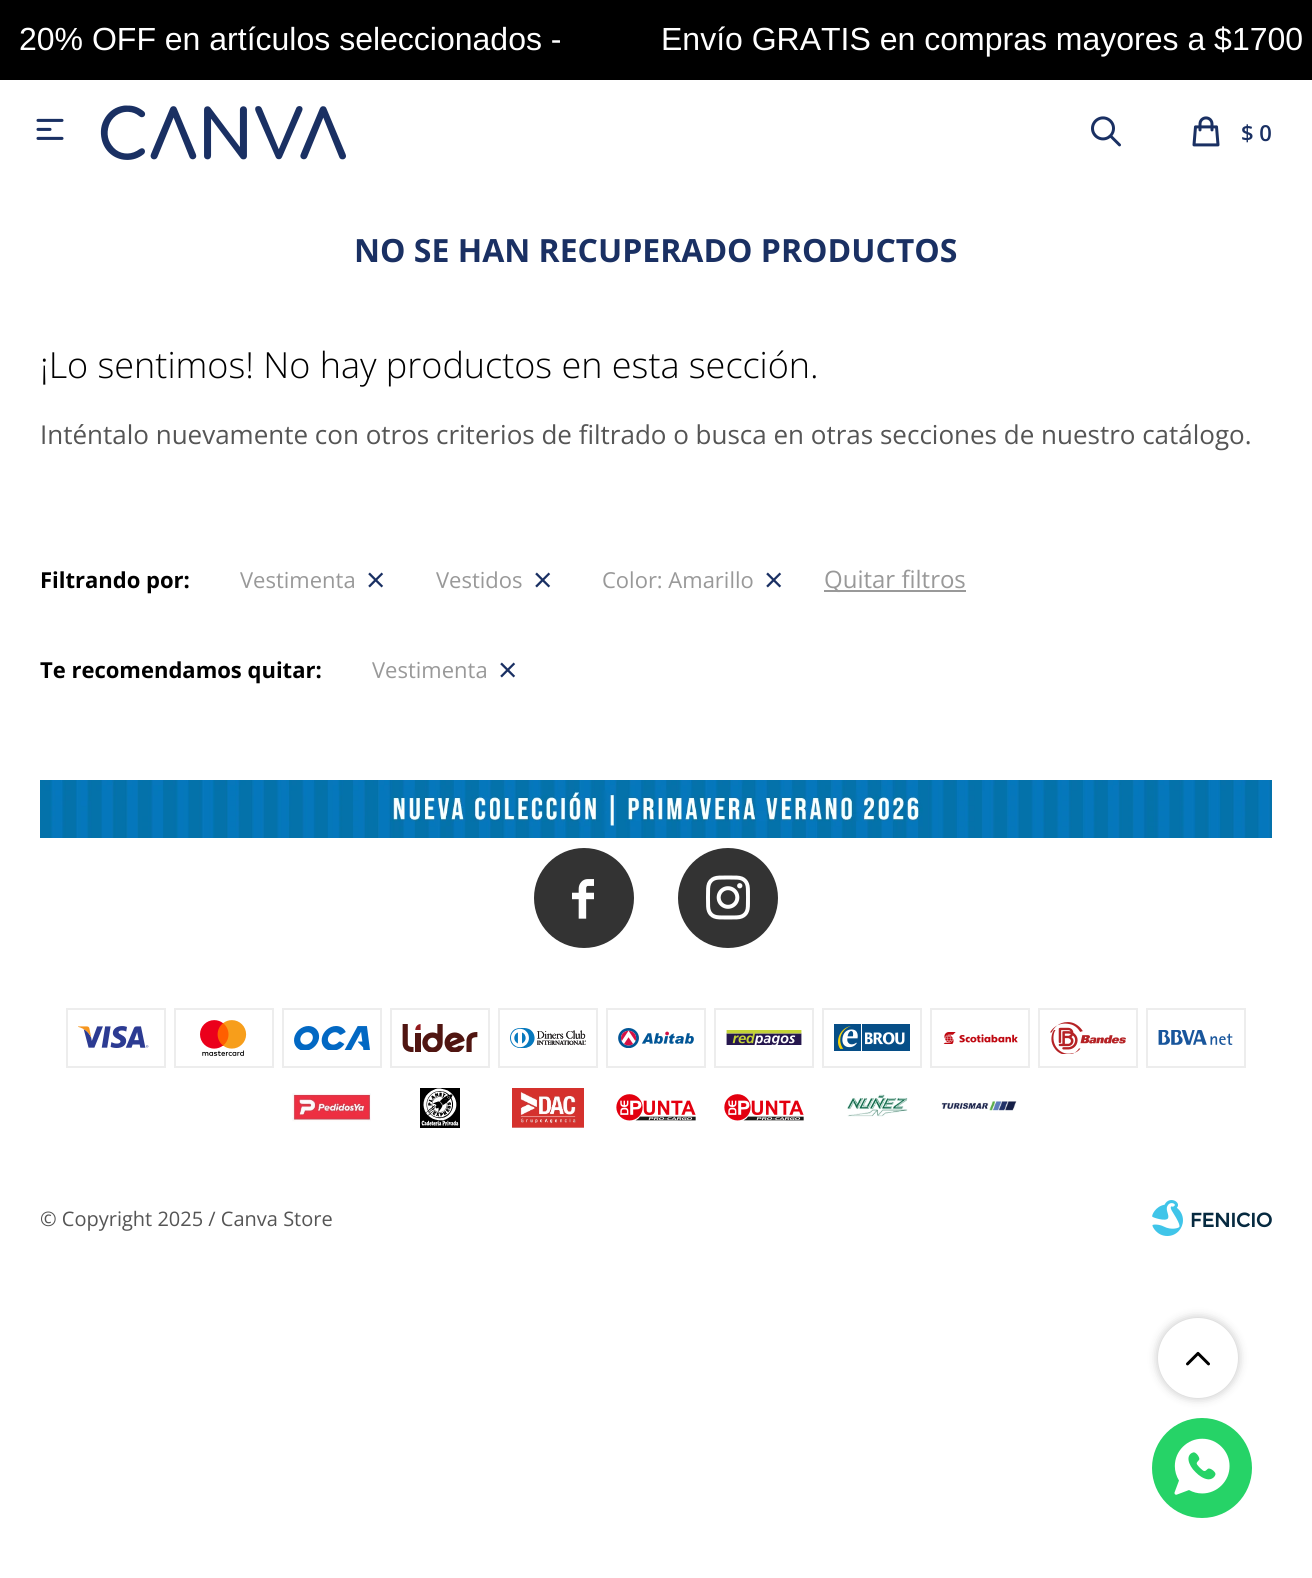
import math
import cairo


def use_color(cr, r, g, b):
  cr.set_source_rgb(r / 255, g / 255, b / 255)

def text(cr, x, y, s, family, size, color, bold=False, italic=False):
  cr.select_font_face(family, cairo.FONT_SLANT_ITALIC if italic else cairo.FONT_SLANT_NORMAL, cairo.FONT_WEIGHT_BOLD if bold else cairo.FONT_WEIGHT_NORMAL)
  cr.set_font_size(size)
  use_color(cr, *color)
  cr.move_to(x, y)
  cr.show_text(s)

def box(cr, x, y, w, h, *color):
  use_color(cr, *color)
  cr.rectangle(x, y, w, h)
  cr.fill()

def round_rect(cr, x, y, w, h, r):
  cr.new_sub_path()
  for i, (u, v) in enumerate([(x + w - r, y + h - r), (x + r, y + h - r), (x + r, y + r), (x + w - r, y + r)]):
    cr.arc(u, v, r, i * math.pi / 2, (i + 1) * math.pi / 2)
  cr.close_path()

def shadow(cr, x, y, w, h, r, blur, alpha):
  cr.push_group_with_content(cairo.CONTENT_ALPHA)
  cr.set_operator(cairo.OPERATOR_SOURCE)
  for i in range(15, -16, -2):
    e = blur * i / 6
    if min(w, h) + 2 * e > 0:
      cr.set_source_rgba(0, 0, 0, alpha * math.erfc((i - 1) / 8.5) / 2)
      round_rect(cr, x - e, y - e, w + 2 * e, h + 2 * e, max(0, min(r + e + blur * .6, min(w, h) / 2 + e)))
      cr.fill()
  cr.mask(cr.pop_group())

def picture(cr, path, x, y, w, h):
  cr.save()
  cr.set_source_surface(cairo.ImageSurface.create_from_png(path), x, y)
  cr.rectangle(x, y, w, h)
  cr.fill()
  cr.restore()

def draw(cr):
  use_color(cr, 255, 255, 255)
  cr.paint()
  box(cr, 0, 0, 1312, 80, 0, 0, 0)
  picture(cr, "img_01.png", 36, 118, 28, 22)
  picture(cr, "img_02.png", 100, 105, 246, 55)
  picture(cr, "img_03.png", 1091, 116, 30, 31)
  picture(cr, "img_04.png", 1192, 116, 28, 31)
  box(cr, 824, 590, 142, 2, 153, 153, 153)
  use_color(cr, 0, 0, 0)
  shadow(cr, 1158, 1318, 80, 80, 40, 5, 0.25)
  use_color(cr, 255, 255, 255)
  cr.arc(1198, 1358, 40, 0, 2 * math.pi)
  cr.fill()
  picture(cr, "img_05.png", 1186, 1351, 24, 15)
  picture(cr, "img_06.png", 40, 780, 1232, 58)
  use_color(cr, 51, 51, 51)
  cr.arc(584, 898, 50, 0, 2 * math.pi)
  cr.fill()
  picture(cr, "img_07.png", 572, 879, 22, 40)
  cr.arc(728, 898, 50, 0, 2 * math.pi)
  cr.fill()
  picture(cr, "img_08.png", 706, 875, 44, 45)
  cr.rectangle(67, 1009, 98, 58)
  use_color(cr, 237, 237, 237)
  cr.stroke()
  picture(cr, "img_09.png", 78, 1026, 71, 22)
  cr.rectangle(175, 1009, 98, 58)
  cr.stroke()
  picture(cr, "img_10.png", 200, 1020, 47, 36)
  cr.rectangle(283, 1009, 98, 58)
  cr.stroke()
  picture(cr, "img_11.png", 294, 1026, 76, 24)
  cr.rectangle(391, 1009, 98, 58)
  cr.stroke()
  picture(cr, "img_12.png", 402, 1024, 76, 28)
  cr.rectangle(499, 1009, 98, 58)
  cr.stroke()
  picture(cr, "img_13.png", 510, 1028, 76, 20)
  cr.rectangle(607, 1009, 98, 58)
  cr.stroke()
  picture(cr, "img_14.png", 618, 1028, 76, 20)
  cr.rectangle(715, 1009, 98, 58)
  cr.stroke()
  picture(cr, "img_15.png", 726, 1030, 76, 15)
  cr.rectangle(823, 1009, 98, 58)
  cr.stroke()
  picture(cr, "img_16.png", 834, 1024, 76, 27)
  cr.rectangle(931, 1009, 98, 58)
  cr.stroke()
  picture(cr, "img_17.png", 943, 1032, 75, 12)
  cr.rectangle(1039, 1009, 98, 58)
  cr.stroke()
  picture(cr, "img_18.png", 1050, 1022, 76, 32)
  cr.rectangle(1147, 1009, 98, 58)
  cr.stroke()
  picture(cr, "img_19.png", 1158, 1030, 75, 15)
  picture(cr, "img_20.png", 292, 1093, 79, 29)
  picture(cr, "img_21.png", 420, 1088, 40, 40)
  picture(cr, "img_22.png", 512, 1088, 72, 40)
  picture(cr, "img_23.png", 616, 1094, 80, 27)
  picture(cr, "img_23.png", 724, 1094, 80, 27)
  picture(cr, "img_24.png", 847, 1094, 61, 23)
  picture(cr, "img_25.png", 941, 1101, 76, 10)
  picture(cr, "img_26.png", 1152, 1200, 120, 36)
  use_color(cr, 38, 211, 103)
  cr.arc(1202, 1468, 50, 0, 2 * math.pi)
  cr.fill()
  picture(cr, "img_27.png", 1174, 1438, 56, 57)
  text(cr, 19, 50, "20% OFF en artículos seleccionados -", "Liberation Sans", 32, (255, 255, 255))
  text(cr, 661, 50, "Envío GRATIS en compras mayores a $1700", "Liberation Sans", 32, (255, 255, 255))
  text(cr, 1241, 141, "$ 0", "Open Sans SemiBold", 22, (26, 48, 99))
  text(cr, 354, 262, "NO SE HAN RECUPERADO PRODUCTOS", "Open Sans", 32, (26, 48, 99), bold=True)
  text(cr, 40, 378, "¡Lo sentimos! No hay productos en esta sección.", "Open Sans Light", 36, (0, 0, 0))
  text(cr, 40, 444, "Inténtalo nuevamente con otros criterios de filtrado o busca en otras secciones de nuestro catálogo.", "Open Sans", 26, (85, 85, 85))
  text(cr, 40, 588, "Filtrando por:", "Open Sans", 22, (0, 0, 0), bold=True)
  text(cr, 240, 588, "Vestimenta", "Open Sans", 22, (153, 153, 153))
  text(cr, 366, 592, "×", "Open Sans", 34, (26, 48, 99))
  text(cr, 436, 588, "Vestidos", "Open Sans", 22, (153, 153, 153))
  text(cr, 533, 592, "×", "Open Sans", 34, (26, 48, 99))
  text(cr, 602, 588, "Color: Amarillo", "Open Sans", 22, (153, 153, 153))
  text(cr, 764, 592, "×", "Open Sans", 34, (26, 48, 99))
  text(cr, 824, 588, "Quitar filtros", "Open Sans", 24, (153, 153, 153))
  text(cr, 40, 678, "Te recomendamos quitar:", "Open Sans", 22, (0, 0, 0), bold=True)
  text(cr, 372, 678, "Vestimenta", "Open Sans", 22, (153, 153, 153))
  text(cr, 498, 682, "×", "Open Sans", 34, (26, 48, 99))
  text(cr, 40, 1226, "© Copyright 2025 / Canva Store", "Open Sans", 20, (85, 85, 85))


surface = cairo.ImageSurface(cairo.FORMAT_RGB24, 1312, 1578)
cr = cairo.Context(surface)
options = cairo.FontOptions()
options.set_hint_metrics(cairo.HINT_METRICS_OFF)
options.set_hint_style(cairo.HINT_STYLE_NONE)
cr.set_font_options(options)
cr.set_miter_limit(4)
draw(cr)
surface.write_to_png("out.png")
